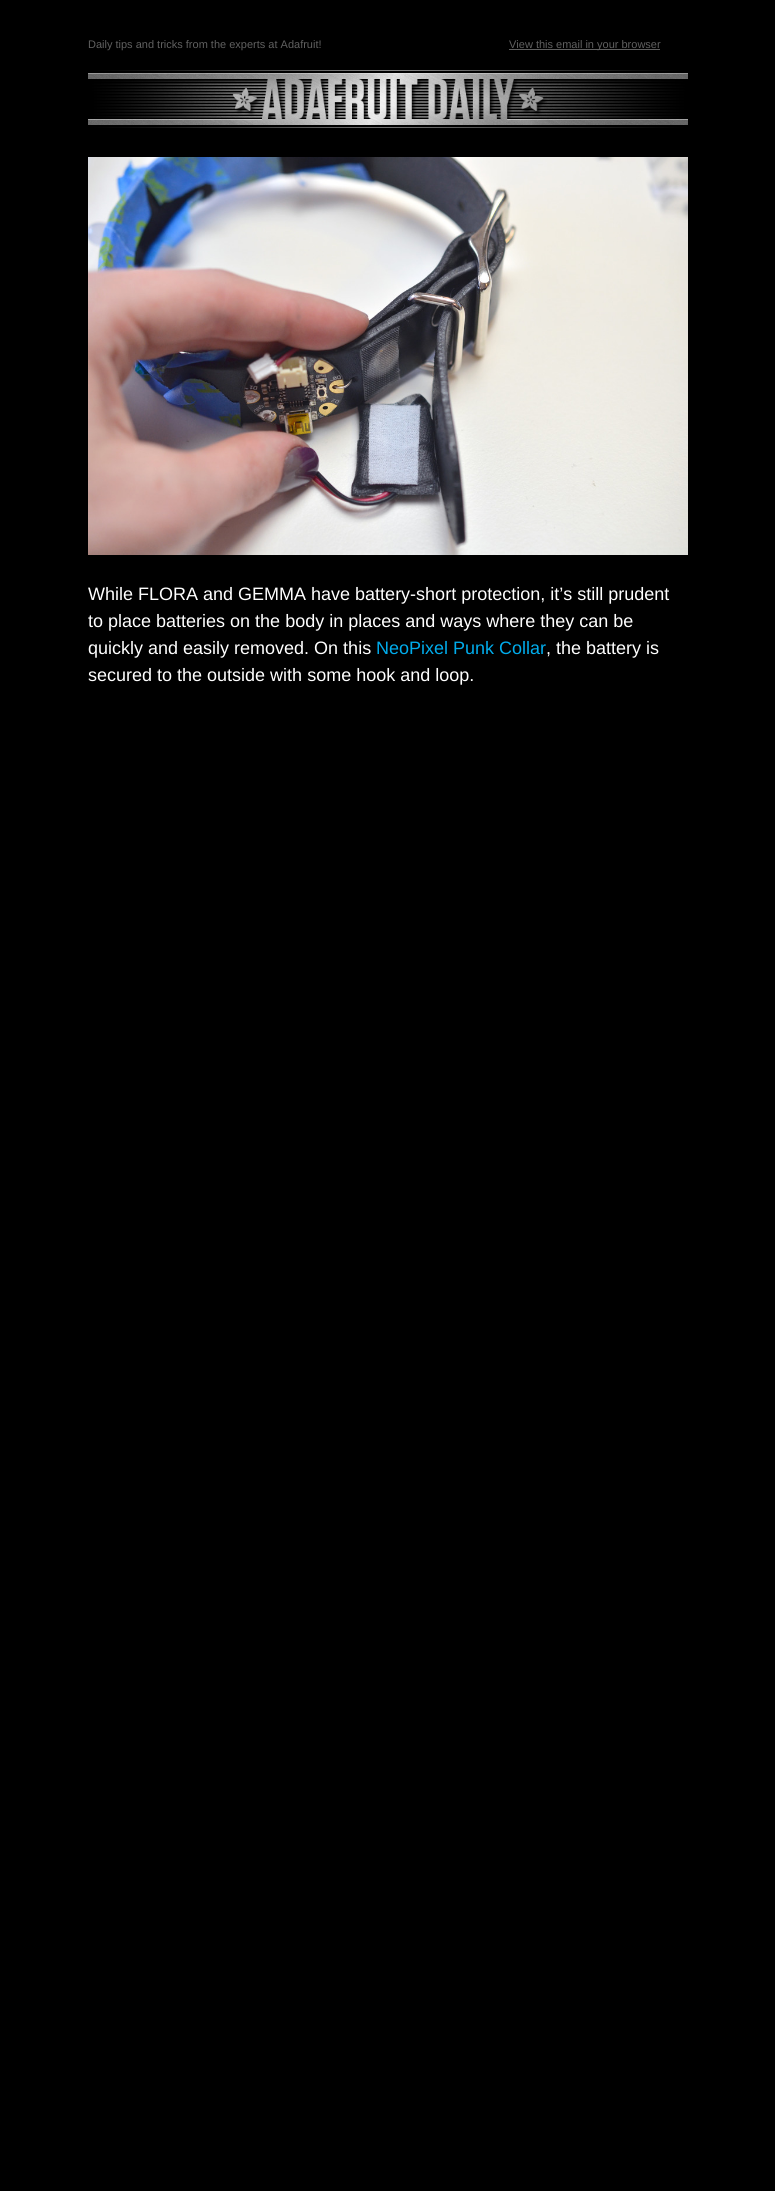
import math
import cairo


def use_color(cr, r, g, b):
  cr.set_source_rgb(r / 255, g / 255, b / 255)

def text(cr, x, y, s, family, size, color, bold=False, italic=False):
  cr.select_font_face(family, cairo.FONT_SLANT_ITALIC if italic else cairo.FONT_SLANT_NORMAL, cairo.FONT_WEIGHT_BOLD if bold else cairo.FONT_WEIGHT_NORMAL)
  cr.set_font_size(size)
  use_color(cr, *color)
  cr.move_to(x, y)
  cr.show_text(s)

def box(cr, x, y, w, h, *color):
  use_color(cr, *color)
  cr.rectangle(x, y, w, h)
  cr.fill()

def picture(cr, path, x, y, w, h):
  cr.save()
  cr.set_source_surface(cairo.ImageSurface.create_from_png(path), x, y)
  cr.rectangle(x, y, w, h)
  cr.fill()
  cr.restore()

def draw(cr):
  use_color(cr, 0, 0, 0)
  cr.paint()
  box(cr, 509, 49, 151, 1, 96, 96, 96)
  picture(cr, "img_01.png", 88, 70, 600, 58)
  picture(cr, "img_02.png", 88, 157, 600, 398)
  text(cr, 88, 48, "Daily tips and tricks from the experts at Adafruit!", "Liberation Sans", 11, (96, 96, 96))
  text(cr, 509, 48, "View this email in your browser", "Liberation Sans", 11, (96, 96, 96))
  text(cr, 88, 600, "While FLORA and GEMMA have battery-short protection, it’s still prudent", "Liberation Sans", 18, (255, 255, 255))
  text(cr, 88, 627, "to place batteries on the body in places and ways where they can be", "Liberation Sans", 18, (255, 255, 255))
  text(cr, 88, 654, "quickly and easily removed. On this", "Liberation Sans", 18, (255, 255, 255))
  text(cr, 376, 654, "NeoPixel Punk Collar", "Liberation Sans", 18, (0, 172, 236))
  text(cr, 546, 654, ", the battery is", "Liberation Sans", 18, (255, 255, 255))
  text(cr, 88, 681, "secured to the outside with some hook and loop.", "Liberation Sans", 18, (255, 255, 255))


surface = cairo.ImageSurface(cairo.FORMAT_RGB24, 775, 2191)
cr = cairo.Context(surface)
options = cairo.FontOptions()
options.set_hint_metrics(cairo.HINT_METRICS_OFF)
options.set_hint_style(cairo.HINT_STYLE_NONE)
cr.set_font_options(options)
cr.set_miter_limit(4)
draw(cr)
surface.write_to_png("out.png")
